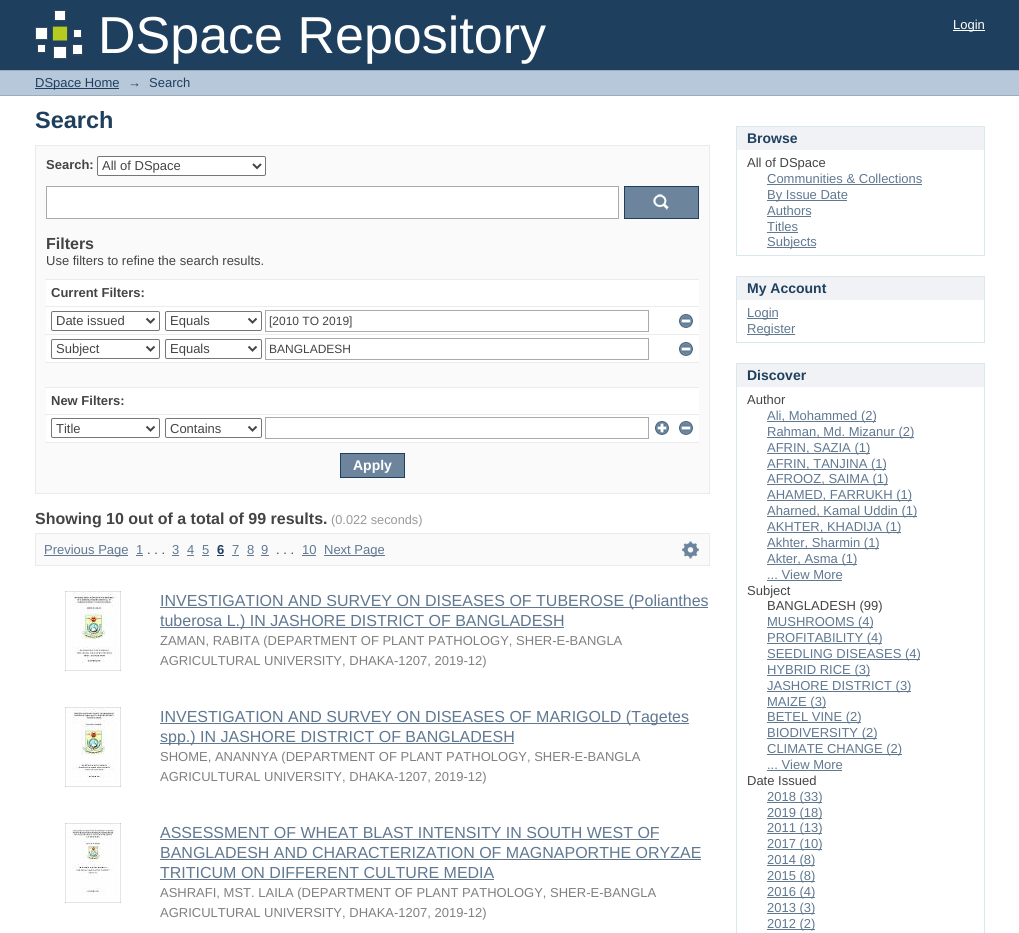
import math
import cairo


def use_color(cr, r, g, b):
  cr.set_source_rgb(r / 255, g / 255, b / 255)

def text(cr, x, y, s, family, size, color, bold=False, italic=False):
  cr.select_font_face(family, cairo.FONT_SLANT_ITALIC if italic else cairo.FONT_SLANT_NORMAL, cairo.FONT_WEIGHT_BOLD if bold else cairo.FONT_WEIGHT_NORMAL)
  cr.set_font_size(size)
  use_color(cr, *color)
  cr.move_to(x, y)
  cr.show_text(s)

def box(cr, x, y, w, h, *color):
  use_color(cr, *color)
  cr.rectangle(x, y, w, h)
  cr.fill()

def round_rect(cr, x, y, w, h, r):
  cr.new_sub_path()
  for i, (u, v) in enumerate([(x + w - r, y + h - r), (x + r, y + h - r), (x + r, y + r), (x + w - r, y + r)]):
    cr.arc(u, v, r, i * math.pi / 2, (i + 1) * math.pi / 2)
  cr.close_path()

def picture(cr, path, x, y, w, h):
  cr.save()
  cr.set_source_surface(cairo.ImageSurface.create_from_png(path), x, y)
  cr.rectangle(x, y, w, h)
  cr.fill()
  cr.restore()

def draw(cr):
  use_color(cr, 255, 255, 255)
  cr.paint()
  box(cr, 0, 0, 1019, 70, 31, 63, 94)
  picture(cr, "img_01.png", 35, 10, 48, 49)
  box(cr, 953, 30, 32, 1, 255, 255, 255)
  box(cr, 0, 71, 1019, 24, 182, 200, 217)
  box(cr, 0, 70, 1019, 1, 156, 172, 186)
  box(cr, 0, 95, 1019, 1, 156, 172, 186)
  box(cr, 35, 88, 84, 1, 31, 63, 94)
  use_color(cr, 250, 250, 250)
  cr.rectangle(35.5, 145.5, 674, 348)
  cr.fill_preserve()
  use_color(cr, 235, 235, 235)
  cr.set_line_width(1)
  cr.stroke()
  use_color(cr, 255, 255, 255)
  round_rect(cr, 97.5, 156.5, 168, 19, 1.5)
  cr.fill_preserve()
  use_color(cr, 118, 118, 118)
  cr.stroke()
  cr.new_path()
  cr.move_to(253, 164)
  cr.line_to(257, 168)
  cr.line_to(261, 164)
  use_color(cr, 68, 68, 68)
  cr.set_line_width(2)
  cr.stroke()
  use_color(cr, 255, 255, 255)
  cr.rectangle(46.5, 186.5, 572, 32)
  cr.fill_preserve()
  use_color(cr, 170, 170, 170)
  cr.set_line_width(1)
  cr.stroke()
  box(cr, 625, 187, 73, 31, 109, 133, 156)
  picture(cr, "img_02.png", 653, 194, 16, 16)
  cr.rectangle(624.5, 186.5, 74, 32)
  use_color(cr, 31, 63, 94)
  cr.stroke()
  box(cr, 46, 280, 653, 162, 255, 255, 255)
  box(cr, 45, 279, 654, 1, 235, 235, 235)
  box(cr, 45, 306, 654, 1, 235, 235, 235)
  round_rect(cr, 51.5, 311.5, 108, 19, 1.5)
  use_color(cr, 118, 118, 118)
  cr.stroke()
  cr.new_path()
  cr.move_to(146.5, 318.5)
  cr.line_to(150.5, 322.5)
  cr.line_to(154.5, 318.5)
  use_color(cr, 68, 68, 68)
  cr.set_line_width(2)
  cr.stroke()
  round_rect(cr, 165.5, 311.5, 96, 19, 1.5)
  use_color(cr, 118, 118, 118)
  cr.set_line_width(1)
  cr.stroke()
  cr.new_path()
  cr.move_to(248.5, 318.5)
  cr.line_to(252.5, 322.5)
  cr.line_to(256.5, 318.5)
  use_color(cr, 68, 68, 68)
  cr.set_line_width(2)
  cr.stroke()
  cr.rectangle(265.5, 310.5, 383, 21)
  use_color(cr, 170, 170, 170)
  cr.set_line_width(1)
  cr.stroke()
  picture(cr, "img_03.png", 679, 314, 14, 14)
  box(cr, 45, 334, 654, 1, 235, 235, 235)
  round_rect(cr, 51.5, 339.5, 108, 19, 1.5)
  use_color(cr, 118, 118, 118)
  cr.stroke()
  cr.new_path()
  cr.move_to(146.5, 346.5)
  cr.line_to(150.5, 350.5)
  cr.line_to(154.5, 346.5)
  use_color(cr, 68, 68, 68)
  cr.set_line_width(2)
  cr.stroke()
  round_rect(cr, 165.5, 339.5, 96, 19, 1.5)
  use_color(cr, 118, 118, 118)
  cr.set_line_width(1)
  cr.stroke()
  cr.new_path()
  cr.move_to(248.5, 346.5)
  cr.line_to(252.5, 350.5)
  cr.line_to(256.5, 346.5)
  use_color(cr, 68, 68, 68)
  cr.set_line_width(2)
  cr.stroke()
  cr.rectangle(265.5, 338.5, 383, 21)
  use_color(cr, 170, 170, 170)
  cr.set_line_width(1)
  cr.stroke()
  picture(cr, "img_03.png", 679, 342, 14, 14)
  box(cr, 46, 363, 653, 24, 250, 250, 250)
  box(cr, 45, 362, 654, 1, 235, 235, 235)
  box(cr, 45, 387, 654, 1, 235, 235, 235)
  box(cr, 45, 414, 654, 1, 235, 235, 235)
  round_rect(cr, 51.5, 418.5, 108, 19, 1.5)
  use_color(cr, 118, 118, 118)
  cr.stroke()
  cr.new_path()
  cr.move_to(146.5, 426.5)
  cr.line_to(150.5, 430.5)
  cr.line_to(154.5, 426.5)
  use_color(cr, 68, 68, 68)
  cr.set_line_width(2)
  cr.stroke()
  round_rect(cr, 165.5, 418.5, 96, 19, 1.5)
  use_color(cr, 118, 118, 118)
  cr.set_line_width(1)
  cr.stroke()
  cr.new_path()
  cr.move_to(248.5, 426.5)
  cr.line_to(252.5, 430.5)
  cr.line_to(256.5, 426.5)
  use_color(cr, 68, 68, 68)
  cr.set_line_width(2)
  cr.stroke()
  cr.rectangle(265.5, 417.5, 383, 21)
  use_color(cr, 170, 170, 170)
  cr.set_line_width(1)
  cr.stroke()
  picture(cr, "img_04.png", 655, 421, 14, 14)
  picture(cr, "img_03.png", 679, 421, 14, 14)
  box(cr, 45, 442, 654, 1, 235, 235, 235)
  use_color(cr, 109, 133, 156)
  cr.rectangle(340.5, 453.5, 64, 24)
  cr.fill_preserve()
  use_color(cr, 31, 63, 94)
  cr.stroke()
  use_color(cr, 250, 250, 250)
  cr.rectangle(35.5, 533.5, 674, 32)
  cr.fill_preserve()
  use_color(cr, 235, 235, 235)
  cr.stroke()
  box(cr, 44, 555, 84, 1, 96, 120, 144)
  box(cr, 136, 555, 7, 1, 96, 120, 144)
  box(cr, 172, 555, 7, 1, 96, 120, 144)
  box(cr, 187, 555, 7, 1, 96, 120, 144)
  box(cr, 202, 555, 7, 1, 96, 120, 144)
  box(cr, 217, 555, 7, 1, 31, 63, 94)
  box(cr, 232, 555, 7, 1, 96, 120, 144)
  box(cr, 247, 555, 7, 1, 96, 120, 144)
  box(cr, 261, 555, 8, 1, 96, 120, 144)
  box(cr, 302, 555, 14, 1, 96, 120, 144)
  box(cr, 324, 555, 61, 1, 96, 120, 144)
  picture(cr, "img_05.png", 682, 541, 17, 18)
  picture(cr, "img_06.png", 65, 591, 56, 80)
  box(cr, 160, 607, 548, 1, 96, 120, 144)
  box(cr, 160, 627, 404, 1, 96, 120, 144)
  picture(cr, "img_07.png", 65, 707, 56, 80)
  box(cr, 160, 723, 529, 1, 96, 120, 144)
  box(cr, 160, 743, 354, 1, 96, 120, 144)
  picture(cr, "img_08.png", 65, 823, 56, 80)
  box(cr, 160, 839, 499, 1, 96, 120, 144)
  box(cr, 160, 859, 541, 1, 96, 120, 144)
  box(cr, 160, 879, 334, 1, 96, 120, 144)
  box(cr, 737, 127, 247, 23, 240, 242, 245)
  box(cr, 736, 126, 249, 1, 216, 232, 235)
  box(cr, 984, 126, 1, 130, 216, 232, 235)
  box(cr, 736, 126, 1, 24, 216, 232, 235)
  box(cr, 736, 255, 249, 1, 216, 232, 235)
  box(cr, 736, 150, 1, 106, 216, 232, 235)
  box(cr, 767, 184, 155, 1, 96, 120, 144)
  box(cr, 767, 200, 80, 1, 96, 120, 144)
  box(cr, 767, 216, 44, 1, 96, 120, 144)
  box(cr, 767, 232, 31, 1, 96, 120, 144)
  box(cr, 767, 247, 49, 1, 96, 120, 144)
  box(cr, 737, 277, 247, 23, 240, 242, 245)
  box(cr, 736, 276, 249, 1, 216, 232, 235)
  box(cr, 984, 276, 1, 67, 216, 232, 235)
  box(cr, 736, 276, 1, 24, 216, 232, 235)
  box(cr, 736, 342, 249, 1, 216, 232, 235)
  box(cr, 736, 300, 1, 43, 216, 232, 235)
  box(cr, 747, 318, 31, 1, 96, 120, 144)
  box(cr, 747, 334, 48, 1, 96, 120, 144)
  box(cr, 737, 364, 247, 23, 240, 242, 245)
  box(cr, 736, 363, 249, 1, 216, 232, 235)
  box(cr, 984, 363, 1, 570, 216, 232, 235)
  box(cr, 736, 363, 1, 570, 216, 232, 235)
  box(cr, 767, 421, 109, 1, 96, 120, 144)
  box(cr, 767, 437, 147, 1, 96, 120, 144)
  box(cr, 767, 453, 103, 1, 96, 120, 144)
  box(cr, 767, 469, 119, 1, 96, 120, 144)
  box(cr, 767, 484, 121, 1, 96, 120, 144)
  box(cr, 767, 500, 145, 1, 96, 120, 144)
  box(cr, 767, 516, 150, 1, 96, 120, 144)
  box(cr, 767, 532, 134, 1, 96, 120, 144)
  box(cr, 767, 548, 112, 1, 96, 120, 144)
  box(cr, 767, 564, 90, 1, 96, 120, 144)
  box(cr, 767, 580, 75, 1, 96, 120, 144)
  box(cr, 767, 627, 106, 1, 96, 120, 144)
  box(cr, 767, 643, 115, 1, 96, 120, 144)
  box(cr, 767, 659, 153, 1, 96, 120, 144)
  box(cr, 767, 675, 103, 1, 96, 120, 144)
  box(cr, 767, 691, 144, 1, 96, 120, 144)
  box(cr, 767, 707, 59, 1, 96, 120, 144)
  box(cr, 767, 722, 94, 1, 96, 120, 144)
  box(cr, 767, 738, 110, 1, 96, 120, 144)
  box(cr, 767, 754, 135, 1, 96, 120, 144)
  box(cr, 767, 770, 75, 1, 96, 120, 144)
  box(cr, 767, 802, 55, 1, 96, 120, 144)
  box(cr, 767, 818, 55, 1, 96, 120, 144)
  box(cr, 767, 833, 55, 1, 96, 120, 144)
  box(cr, 767, 849, 55, 1, 96, 120, 144)
  box(cr, 767, 865, 48, 1, 96, 120, 144)
  box(cr, 767, 881, 48, 1, 96, 120, 144)
  box(cr, 767, 897, 48, 1, 96, 120, 144)
  box(cr, 767, 913, 48, 1, 96, 120, 144)
  box(cr, 767, 929, 48, 1, 96, 120, 144)
  text(cr, 98, 53, "DSpace Repository", "Liberation Sans", 52, (255, 255, 255))
  text(cr, 953, 29, "Login", "Liberation Sans", 13, (255, 255, 255))
  text(cr, 35, 87, "DSpace Home", "Liberation Sans", 13, (31, 63, 94))
  text(cr, 128, 87, "→", "Liberation Sans", 13, (31, 63, 94))
  text(cr, 149, 87, "Search", "Liberation Sans", 13, (31, 63, 94))
  text(cr, 35, 128, "Search", "Liberation Sans", 23.5, (31, 63, 94), bold=True)
  text(cr, 46, 169, "Search:", "Liberation Sans", 13, (68, 68, 68), bold=True)
  text(cr, 102, 170, "All of DSpace", "Liberation Sans", 13, (68, 68, 68))
  text(cr, 46, 249, "Filters", "Liberation Sans", 16, (68, 68, 68), bold=True)
  text(cr, 46, 265, "Use filters to refine the search results.", "Liberation Sans", 13, (68, 68, 68))
  text(cr, 51, 297, "Current Filters:", "Liberation Sans", 13, (68, 68, 68), bold=True)
  text(cr, 56, 325, "Date issued", "Liberation Sans", 13, (68, 68, 68))
  text(cr, 170, 325, "Equals", "Liberation Sans", 13, (68, 68, 68))
  text(cr, 269, 325, "[2010 TO 2019]", "Liberation Sans", 12, (68, 68, 68))
  text(cr, 56, 353, "Subject", "Liberation Sans", 13, (68, 68, 68))
  text(cr, 170, 353, "Equals", "Liberation Sans", 13, (68, 68, 68))
  text(cr, 269, 353, "BANGLADESH", "Liberation Sans", 12, (68, 68, 68))
  text(cr, 51, 405, "New Filters:", "Liberation Sans", 13, (68, 68, 68), bold=True)
  text(cr, 56, 433, "Title", "Liberation Sans", 13, (68, 68, 68))
  text(cr, 170, 433, "Contains", "Liberation Sans", 13, (68, 68, 68))
  text(cr, 353, 470, "Apply", "Liberation Sans", 14, (255, 255, 255), bold=True)
  text(cr, 35, 524, "Showing 10 out of a total of 99 results.", "Liberation Sans", 16, (68, 68, 68), bold=True)
  text(cr, 331, 524, "(0.022 seconds)", "Liberation Sans", 12.75, (153, 153, 153))
  text(cr, 44, 554, "Previous Page", "Liberation Sans", 13, (96, 120, 144))
  text(cr, 136, 554, "1", "Liberation Sans", 13, (96, 120, 144))
  text(cr, 147, 554, ". . .", "Liberation Sans", 13, (68, 68, 68))
  text(cr, 172, 554, "3", "Liberation Sans", 13, (96, 120, 144))
  text(cr, 187, 554, "4", "Liberation Sans", 13, (96, 120, 144))
  text(cr, 202, 554, "5", "Liberation Sans", 13, (96, 120, 144))
  text(cr, 217, 554, "6", "Liberation Sans", 13, (31, 63, 94), bold=True)
  text(cr, 232, 554, "7", "Liberation Sans", 13, (96, 120, 144))
  text(cr, 247, 554, "8", "Liberation Sans", 13, (96, 120, 144))
  text(cr, 261, 554, "9", "Liberation Sans", 13, (96, 120, 144))
  text(cr, 276, 554, ". . .", "Liberation Sans", 13, (68, 68, 68))
  text(cr, 302, 554, "10", "Liberation Sans", 13, (96, 120, 144))
  text(cr, 324, 554, "Next Page", "Liberation Sans", 13, (96, 120, 144))
  text(cr, 160, 606, "INVESTIGATION AND SURVEY ON DISEASES OF TUBEROSE (Polianthes", "Liberation Sans", 16, (96, 120, 144))
  text(cr, 160, 626, "tuberosa L.) IN JASHORE DISTRICT OF BANGLADESH", "Liberation Sans", 16, (96, 120, 144))
  text(cr, 160, 645, "ZAMAN, RABITA (DEPARTMENT OF PLANT PATHOLOGY, SHER-E-BANGLA", "Liberation Sans", 13, (128, 128, 128))
  text(cr, 160, 665, "AGRICULTURAL UNIVERSITY, DHAKA-1207, 2019-12)", "Liberation Sans", 13, (128, 128, 128))
  text(cr, 160, 722, "INVESTIGATION AND SURVEY ON DISEASES OF MARIGOLD (Tagetes", "Liberation Sans", 16, (96, 120, 144))
  text(cr, 160, 742, "spp.) IN JASHORE DISTRICT OF BANGLADESH", "Liberation Sans", 16, (96, 120, 144))
  text(cr, 160, 761, "SHOME, ANANNYA (DEPARTMENT OF PLANT PATHOLOGY, SHER-E-BANGLA", "Liberation Sans", 13, (128, 128, 128))
  text(cr, 160, 781, "AGRICULTURAL UNIVERSITY, DHAKA-1207, 2019-12)", "Liberation Sans", 13, (128, 128, 128))
  text(cr, 160, 838, "ASSESSMENT OF WHEAT BLAST INTENSITY IN SOUTH WEST OF", "Liberation Sans", 16, (96, 120, 144))
  text(cr, 160, 858, "BANGLADESH AND CHARACTERIZATION OF MAGNAPORTHE ORYZAE", "Liberation Sans", 16, (96, 120, 144))
  text(cr, 160, 878, "TRITICUM ON DIFFERENT CULTURE MEDIA", "Liberation Sans", 16, (96, 120, 144))
  text(cr, 160, 897, "ASHRAFI, MST. LAILA (DEPARTMENT OF PLANT PATHOLOGY, SHER-E-BANGLA", "Liberation Sans", 13, (128, 128, 128))
  text(cr, 160, 917, "AGRICULTURAL UNIVERSITY, DHAKA-1207, 2019-12)", "Liberation Sans", 13, (128, 128, 128))
  text(cr, 747, 143, "Browse", "Liberation Sans", 14, (31, 63, 94), bold=True)
  text(cr, 747, 167, "All of DSpace", "Liberation Sans", 13, (68, 68, 68))
  text(cr, 767, 183, "Communities & Collections", "Liberation Sans", 13, (96, 120, 144))
  text(cr, 767, 199, "By Issue Date", "Liberation Sans", 13, (96, 120, 144))
  text(cr, 767, 215, "Authors", "Liberation Sans", 13, (96, 120, 144))
  text(cr, 767, 231, "Titles", "Liberation Sans", 13, (96, 120, 144))
  text(cr, 767, 246, "Subjects", "Liberation Sans", 13, (96, 120, 144))
  text(cr, 747, 293, "My Account", "Liberation Sans", 14, (31, 63, 94), bold=True)
  text(cr, 747, 317, "Login", "Liberation Sans", 13, (96, 120, 144))
  text(cr, 747, 333, "Register", "Liberation Sans", 13, (96, 120, 144))
  text(cr, 747, 380, "Discover", "Liberation Sans", 14, (31, 63, 94), bold=True)
  text(cr, 747, 404, "Author", "Liberation Sans", 13, (68, 68, 68))
  text(cr, 767, 420, "Ali, Mohammed (2)", "Liberation Sans", 13, (96, 120, 144))
  text(cr, 767, 436, "Rahman, Md. Mizanur (2)", "Liberation Sans", 13, (96, 120, 144))
  text(cr, 767, 452, "AFRIN, SAZIA (1)", "Liberation Sans", 13, (96, 120, 144))
  text(cr, 767, 468, "AFRIN, TANJINA (1)", "Liberation Sans", 13, (96, 120, 144))
  text(cr, 767, 483, "AFROOZ, SAIMA (1)", "Liberation Sans", 13, (96, 120, 144))
  text(cr, 767, 499, "AHAMED, FARRUKH (1)", "Liberation Sans", 13, (96, 120, 144))
  text(cr, 767, 515, "Aharned, Kamal Uddin (1)", "Liberation Sans", 13, (96, 120, 144))
  text(cr, 767, 531, "AKHTER, KHADIJA (1)", "Liberation Sans", 13, (96, 120, 144))
  text(cr, 767, 547, "Akhter, Sharmin (1)", "Liberation Sans", 13, (96, 120, 144))
  text(cr, 767, 563, "Akter, Asma (1)", "Liberation Sans", 13, (96, 120, 144))
  text(cr, 767, 579, "... View More", "Liberation Sans", 13, (96, 120, 144))
  text(cr, 747, 595, "Subject", "Liberation Sans", 13, (68, 68, 68))
  text(cr, 767, 610, "BANGLADESH (99)", "Liberation Sans", 13, (68, 68, 68))
  text(cr, 767, 626, "MUSHROOMS (4)", "Liberation Sans", 13, (96, 120, 144))
  text(cr, 767, 642, "PROFITABILITY (4)", "Liberation Sans", 13, (96, 120, 144))
  text(cr, 767, 658, "SEEDLING DISEASES (4)", "Liberation Sans", 13, (96, 120, 144))
  text(cr, 767, 674, "HYBRID RICE (3)", "Liberation Sans", 13, (96, 120, 144))
  text(cr, 767, 690, "JASHORE DISTRICT (3)", "Liberation Sans", 13, (96, 120, 144))
  text(cr, 767, 706, "MAIZE (3)", "Liberation Sans", 13, (96, 120, 144))
  text(cr, 767, 721, "BETEL VINE (2)", "Liberation Sans", 13, (96, 120, 144))
  text(cr, 767, 737, "BIODIVERSITY (2)", "Liberation Sans", 13, (96, 120, 144))
  text(cr, 767, 753, "CLIMATE CHANGE (2)", "Liberation Sans", 13, (96, 120, 144))
  text(cr, 767, 769, "... View More", "Liberation Sans", 13, (96, 120, 144))
  text(cr, 747, 785, "Date Issued", "Liberation Sans", 13, (68, 68, 68))
  text(cr, 767, 801, "2018 (33)", "Liberation Sans", 13, (96, 120, 144))
  text(cr, 767, 817, "2019 (18)", "Liberation Sans", 13, (96, 120, 144))
  text(cr, 767, 832, "2011 (13)", "Liberation Sans", 13, (96, 120, 144))
  text(cr, 767, 848, "2017 (10)", "Liberation Sans", 13, (96, 120, 144))
  text(cr, 767, 864, "2014 (8)", "Liberation Sans", 13, (96, 120, 144))
  text(cr, 767, 880, "2015 (8)", "Liberation Sans", 13, (96, 120, 144))
  text(cr, 767, 896, "2016 (4)", "Liberation Sans", 13, (96, 120, 144))
  text(cr, 767, 912, "2013 (3)", "Liberation Sans", 13, (96, 120, 144))
  text(cr, 767, 928, "2012 (2)", "Liberation Sans", 13, (96, 120, 144))


surface = cairo.ImageSurface(cairo.FORMAT_RGB24, 1019, 933)
cr = cairo.Context(surface)
options = cairo.FontOptions()
options.set_hint_metrics(cairo.HINT_METRICS_OFF)
options.set_hint_style(cairo.HINT_STYLE_NONE)
cr.set_font_options(options)
cr.set_miter_limit(4)
draw(cr)
surface.write_to_png("out.png")
